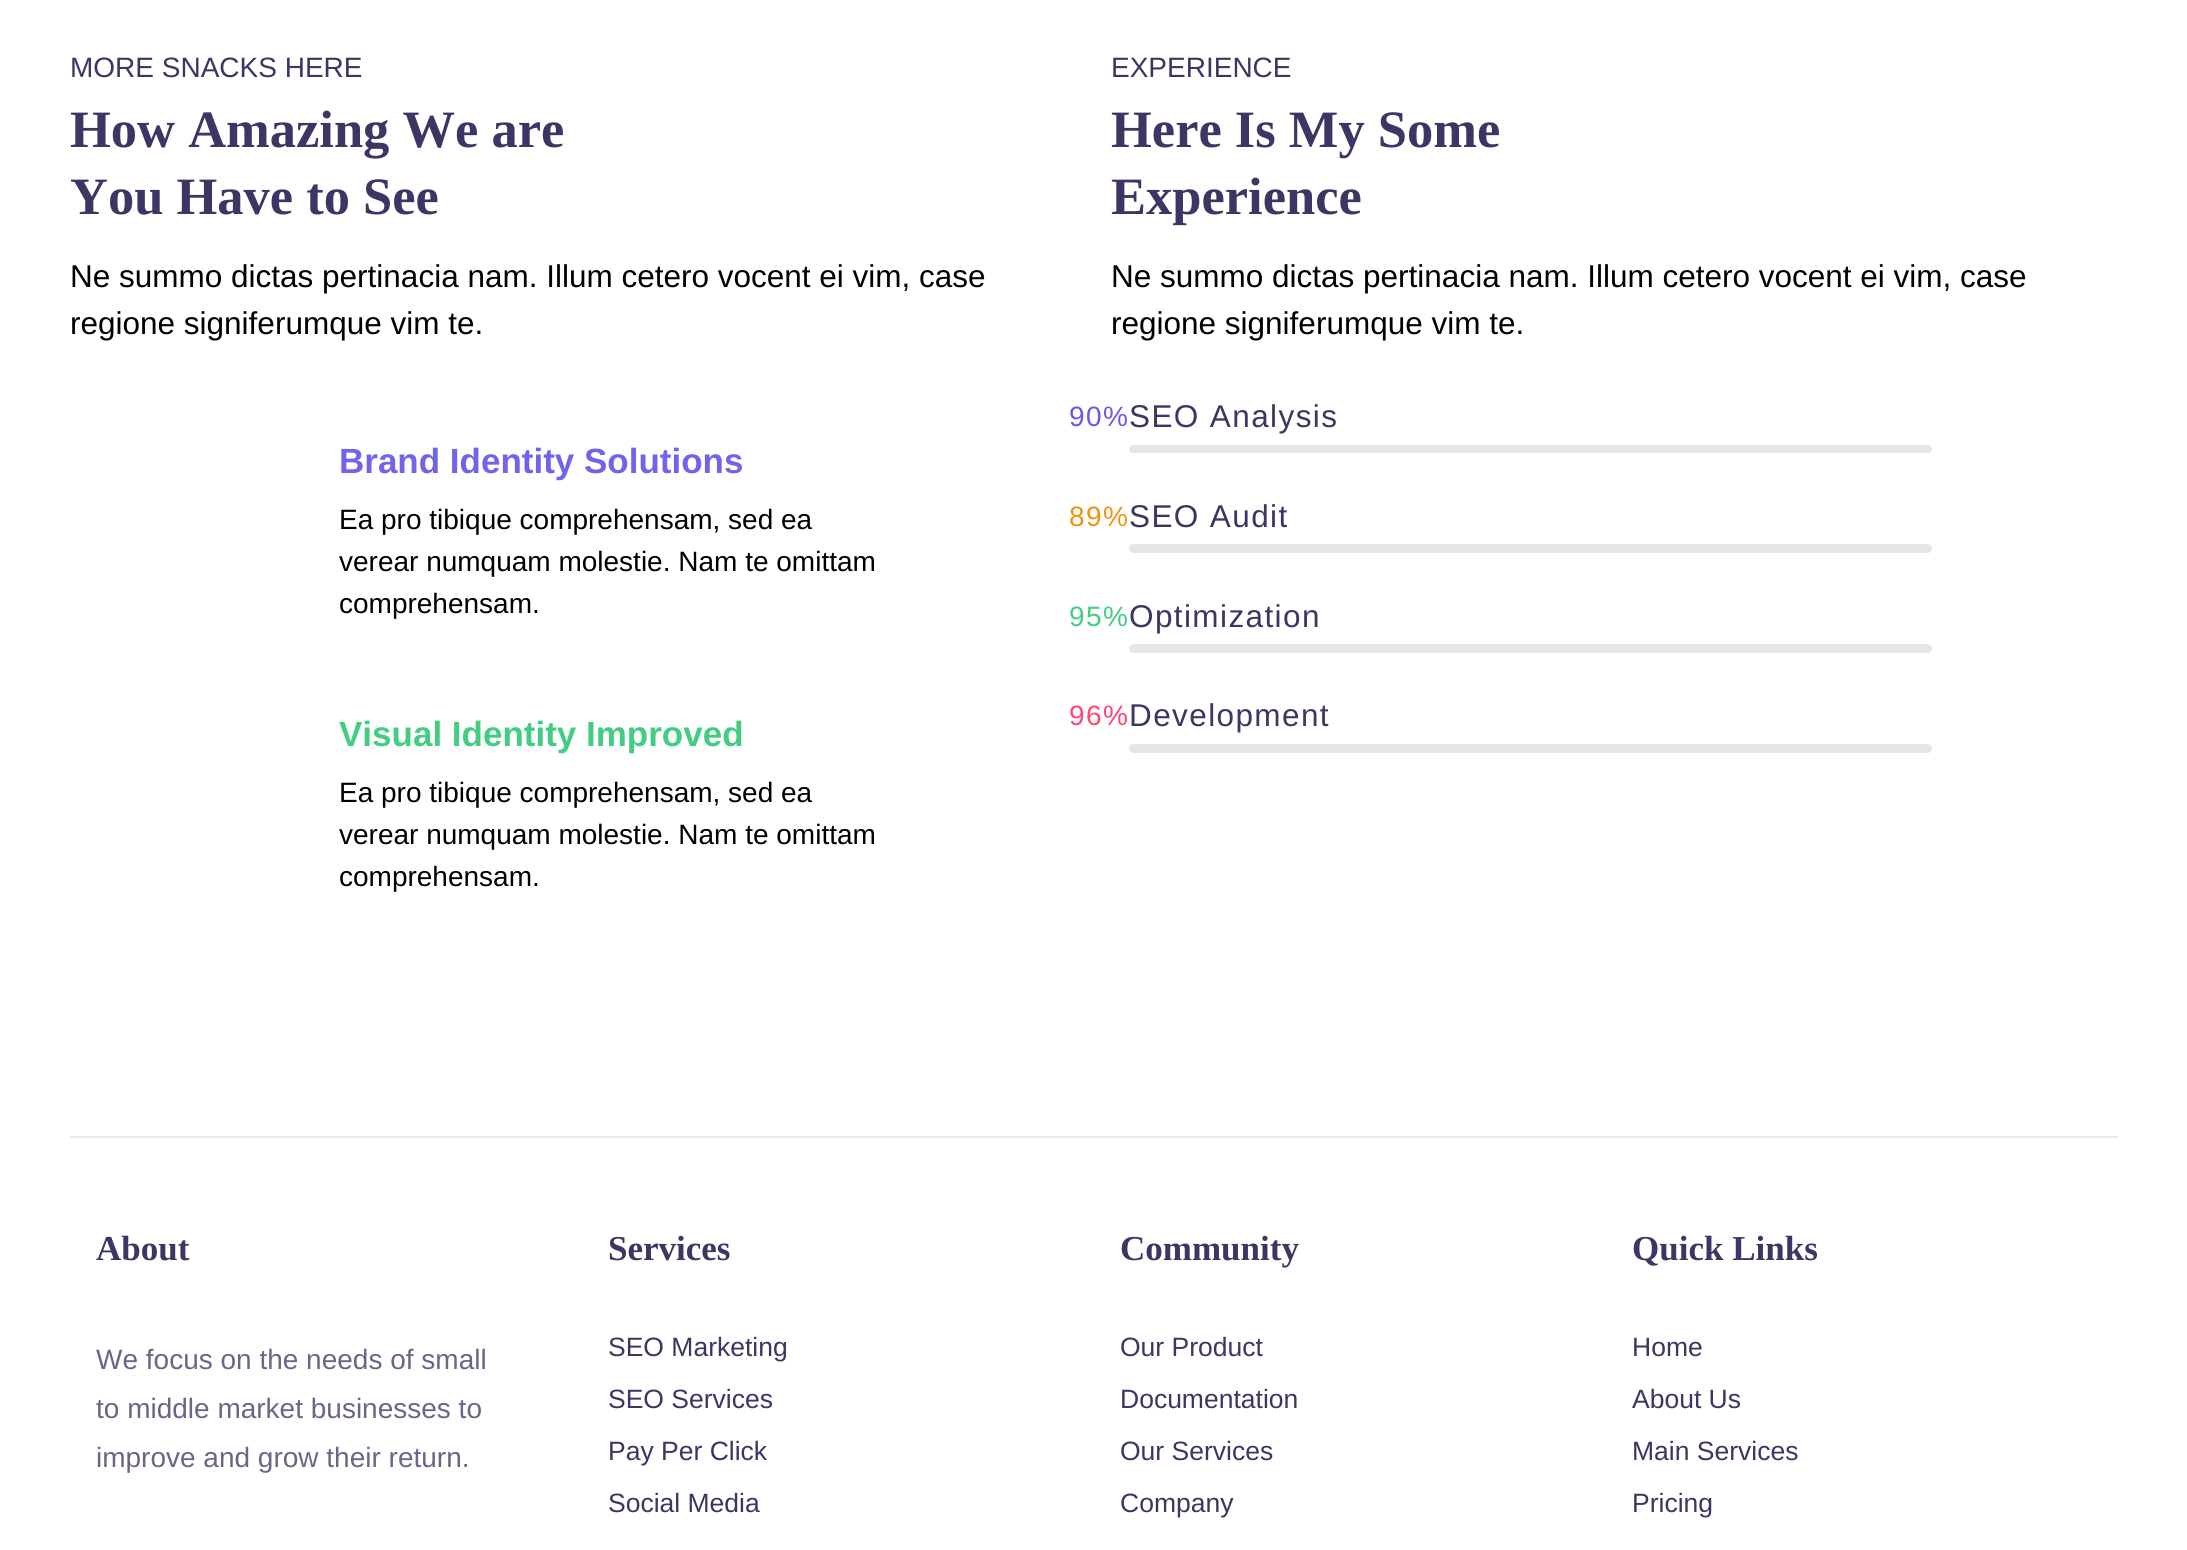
import math
import cairo


def use_color(cr, r, g, b):
  cr.set_source_rgb(r / 255, g / 255, b / 255)

def text(cr, x, y, s, family, size, color, bold=False, italic=False):
  cr.select_font_face(family, cairo.FONT_SLANT_ITALIC if italic else cairo.FONT_SLANT_NORMAL, cairo.FONT_WEIGHT_BOLD if bold else cairo.FONT_WEIGHT_NORMAL)
  cr.set_font_size(size)
  use_color(cr, *color)
  cr.move_to(x, y)
  cr.show_text(s)

def spaced_text(cr, x, y, s, letter, word):
  cr.move_to(x, y)
  for ch in s:
    cr.show_text(ch)
    cr.rel_move_to(letter + word * (ch == ' '), 0)

def box(cr, x, y, w, h, *color):
  use_color(cr, *color)
  cr.rectangle(x, y, w, h)
  cr.fill()

def round_rect(cr, x, y, w, h, r):
  cr.new_sub_path()
  for i, (u, v) in enumerate([(x + w - r, y + h - r), (x + r, y + h - r), (x + r, y + r), (x + w - r, y + r)]):
    cr.arc(u, v, r, i * math.pi / 2, (i + 1) * math.pi / 2)
  cr.close_path()

def draw(cr):
  use_color(cr, 255, 255, 255)
  cr.paint()
  use_color(cr, 230, 230, 231)
  round_rect(cr, 1129, 445, 803, 8, 4)
  cr.fill()
  round_rect(cr, 1129, 544, 803, 9, 4.5)
  cr.fill()
  round_rect(cr, 1129, 644, 803, 9, 4.5)
  cr.fill()
  round_rect(cr, 1129, 744, 803, 9, 4.5)
  cr.fill()
  box(cr, 70, 1136, 2048, 2, 235, 235, 239)
  text(cr, 70, 77, "MORE SNACKS HERE", "Liberation Sans", 28, (59, 54, 99))
  text(cr, 70, 147, "How Amazing We are", "Liberation Serif", 52.5, (59, 54, 99), bold=True)
  text(cr, 70, 214, "You Have to See", "Liberation Serif", 52.5, (59, 54, 99), bold=True)
  text(cr, 70, 287, "Ne summo dictas pertinacia nam. Illum cetero vocent ei vim, case", "Liberation Sans", 31.5, (0, 0, 0))
  text(cr, 70, 334, "regione signiferumque vim te.", "Liberation Sans", 31.5, (0, 0, 0))
  text(cr, 339, 473, "Brand Identity Solutions", "Liberation Sans", 35, (113, 100, 234), bold=True)
  text(cr, 339, 529, "Ea pro tibique comprehensam, sed ea", "Liberation Sans", 28, (0, 0, 0))
  text(cr, 339, 571, "verear numquam molestie. Nam te omittam", "Liberation Sans", 28, (0, 0, 0))
  text(cr, 339, 613, "comprehensam.", "Liberation Sans", 28, (0, 0, 0))
  text(cr, 339, 746, "Visual Identity Improved", "Liberation Sans", 35, (66, 205, 131), bold=True)
  text(cr, 339, 802, "Ea pro tibique comprehensam, sed ea", "Liberation Sans", 28, (0, 0, 0))
  text(cr, 339, 844, "verear numquam molestie. Nam te omittam", "Liberation Sans", 28, (0, 0, 0))
  text(cr, 339, 886, "comprehensam.", "Liberation Sans", 28, (0, 0, 0))
  text(cr, 1111, 77, "EXPERIENCE", "Liberation Sans", 28, (59, 54, 99))
  text(cr, 1111, 147, "Here Is My Some", "Liberation Serif", 52.5, (59, 54, 99), bold=True)
  text(cr, 1111, 214, "Experience", "Liberation Serif", 52.5, (59, 54, 99), bold=True)
  text(cr, 1111, 287, "Ne summo dictas pertinacia nam. Illum cetero vocent ei vim, case", "Liberation Sans", 31.5, (0, 0, 0))
  text(cr, 1111, 334, "regione signiferumque vim te.", "Liberation Sans", 31.5, (0, 0, 0))
  cr.set_font_size(28)
  use_color(cr, 103, 89, 232)
  spaced_text(cr, 1069, 426, "90%", 1.4, 0)
  cr.set_font_size(31.5)
  use_color(cr, 59, 54, 99)
  spaced_text(cr, 1129, 427, "SEO Analysis", 1.4, 0)
  cr.set_font_size(28)
  use_color(cr, 242, 145, 17)
  spaced_text(cr, 1069, 526, "89%", 1.4, 0)
  cr.set_font_size(31.5)
  use_color(cr, 59, 54, 99)
  spaced_text(cr, 1129, 527, "SEO Audit", 1.4, 0)
  cr.set_font_size(28)
  use_color(cr, 66, 205, 131)
  spaced_text(cr, 1069, 626, "95%", 1.4, 0)
  cr.set_font_size(31.5)
  use_color(cr, 59, 54, 99)
  spaced_text(cr, 1129, 627, "Optimization", 1.4, 0)
  cr.set_font_size(28)
  use_color(cr, 254, 70, 111)
  spaced_text(cr, 1069, 725, "96%", 1.4, 0)
  cr.set_font_size(31.5)
  use_color(cr, 59, 54, 99)
  spaced_text(cr, 1129, 726, "Development", 1.4, 0)
  text(cr, 96, 1260, "About", "Liberation Serif", 35, (59, 54, 99), bold=True)
  text(cr, 96, 1369, "We focus on the needs of small", "Liberation Sans", 28, (105, 102, 135))
  text(cr, 96, 1418, "to middle market businesses to", "Liberation Sans", 28, (105, 102, 135))
  text(cr, 96, 1467, "improve and grow their return.", "Liberation Sans", 28, (105, 102, 135))
  text(cr, 608, 1260, "Services", "Liberation Serif", 35, (59, 54, 99), bold=True)
  text(cr, 608, 1356, "SEO Marketing", "Liberation Sans", 26.5, (59, 54, 99))
  text(cr, 608, 1408, "SEO Services", "Liberation Sans", 26.5, (59, 54, 99))
  text(cr, 608, 1460, "Pay Per Click", "Liberation Sans", 26.5, (59, 54, 99))
  text(cr, 608, 1512, "Social Media", "Liberation Sans", 26.5, (59, 54, 99))
  text(cr, 1120, 1260, "Community", "Liberation Serif", 35, (59, 54, 99), bold=True)
  text(cr, 1120, 1356, "Our Product", "Liberation Sans", 26.5, (59, 54, 99))
  text(cr, 1120, 1408, "Documentation", "Liberation Sans", 26.5, (59, 54, 99))
  text(cr, 1120, 1460, "Our Services", "Liberation Sans", 26.5, (59, 54, 99))
  text(cr, 1120, 1512, "Company", "Liberation Sans", 26.5, (59, 54, 99))
  text(cr, 1632, 1260, "Quick Links", "Liberation Serif", 35, (59, 54, 99), bold=True)
  text(cr, 1632, 1356, "Home", "Liberation Sans", 26.5, (59, 54, 99))
  text(cr, 1632, 1408, "About Us", "Liberation Sans", 26.5, (59, 54, 99))
  text(cr, 1632, 1460, "Main Services", "Liberation Sans", 26.5, (59, 54, 99))
  text(cr, 1632, 1512, "Pricing", "Liberation Sans", 26.5, (59, 54, 99))


surface = cairo.ImageSurface(cairo.FORMAT_RGB24, 2187, 1550)
cr = cairo.Context(surface)
options = cairo.FontOptions()
options.set_hint_metrics(cairo.HINT_METRICS_OFF)
options.set_hint_style(cairo.HINT_STYLE_NONE)
cr.set_font_options(options)
cr.set_miter_limit(4)
draw(cr)
surface.write_to_png("out.png")
